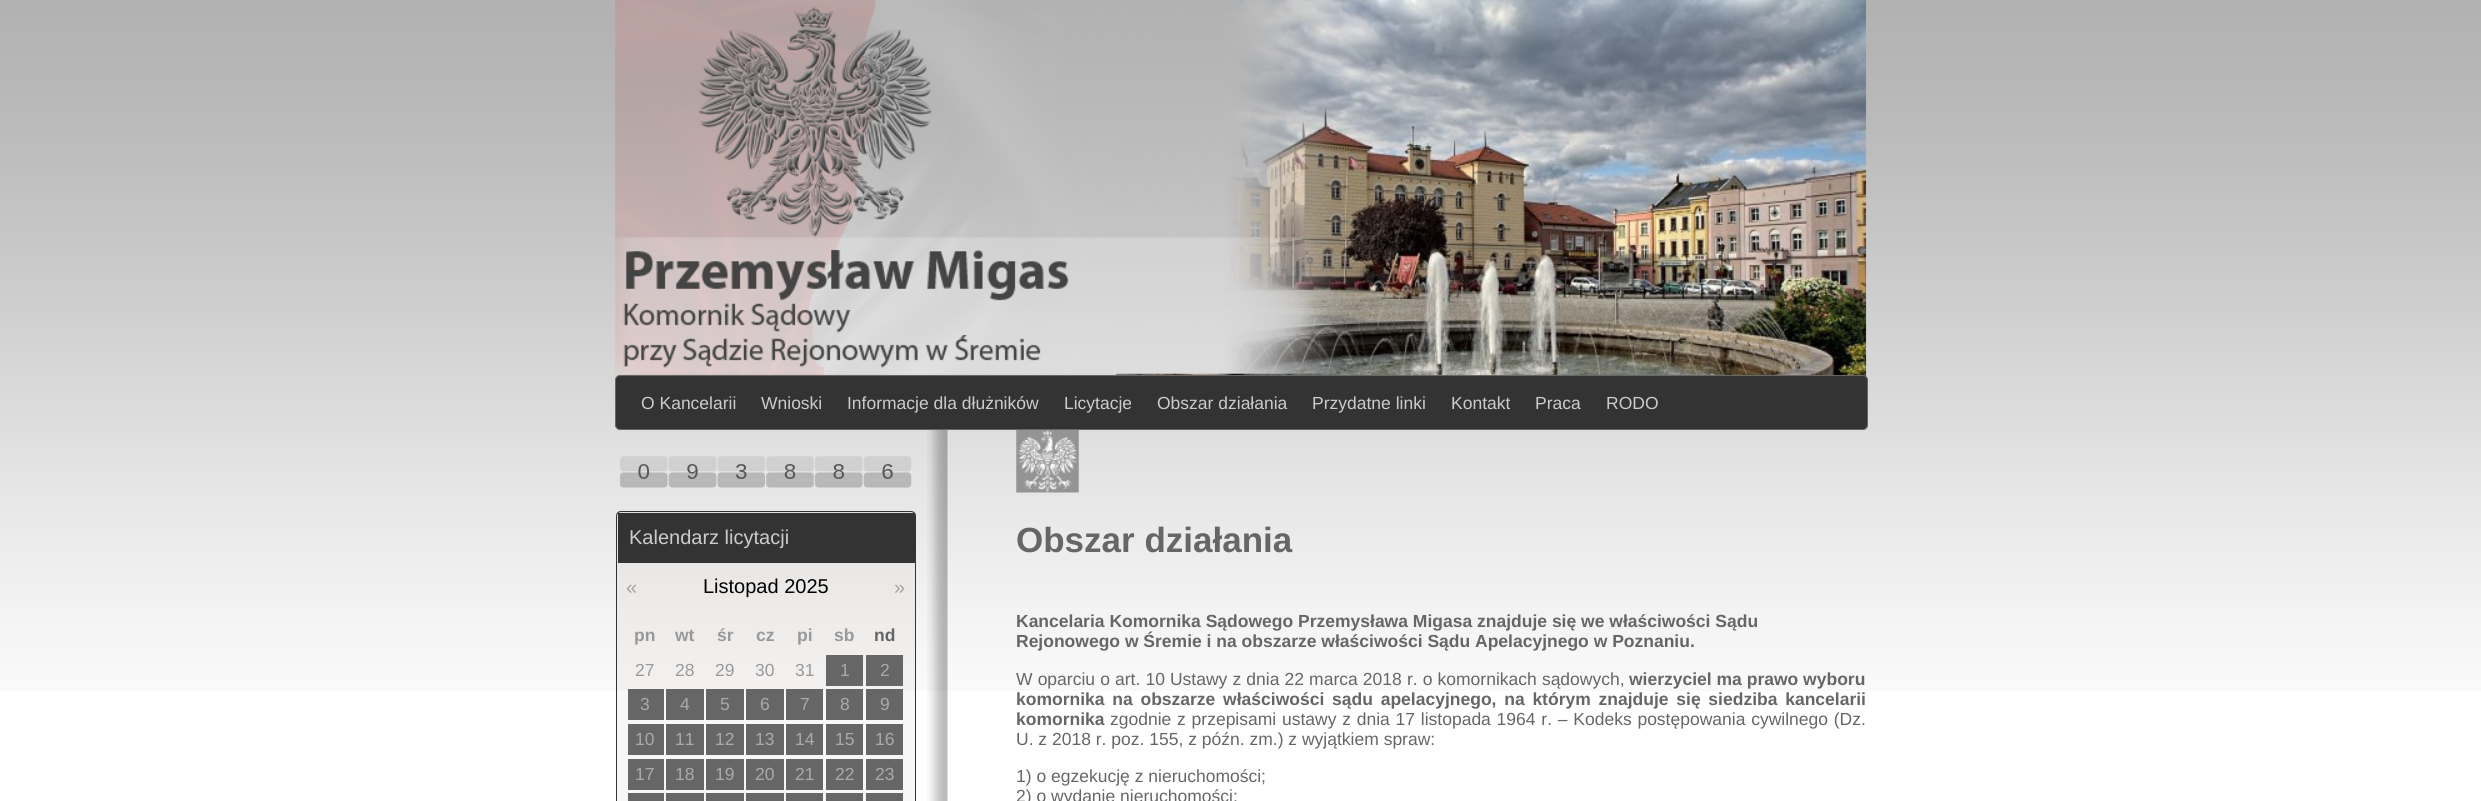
import math
import cairo


def use_color(cr, r, g, b):
  cr.set_source_rgb(r / 255, g / 255, b / 255)

def text(cr, x, y, s, family, size, color, bold=False, italic=False):
  cr.select_font_face(family, cairo.FONT_SLANT_ITALIC if italic else cairo.FONT_SLANT_NORMAL, cairo.FONT_WEIGHT_BOLD if bold else cairo.FONT_WEIGHT_NORMAL)
  cr.set_font_size(size)
  use_color(cr, *color)
  cr.move_to(x, y)
  cr.show_text(s)

def spaced_text(cr, x, y, s, letter, word):
  cr.move_to(x, y)
  for ch in s:
    cr.show_text(ch)
    cr.rel_move_to(letter + word * (ch == ' '), 0)

def box(cr, x, y, w, h, *color):
  use_color(cr, *color)
  cr.rectangle(x, y, w, h)
  cr.fill()

def round_rect(cr, x, y, w, h, r):
  cr.new_sub_path()
  for i, (u, v) in enumerate([(x + w - r, y + h - r), (x + r, y + h - r), (x + r, y + r), (x + w - r, y + r)]):
    cr.arc(u, v, r, i * math.pi / 2, (i + 1) * math.pi / 2)
  cr.close_path()

def picture(cr, path, x, y, w, h):
  cr.save()
  cr.set_source_surface(cairo.ImageSurface.create_from_png(path), x, y)
  cr.rectangle(x, y, w, h)
  cr.fill()
  cr.restore()

def draw(cr):
  use_color(cr, 255, 255, 255)
  cr.paint()
  picture(cr, "img_01.png", 0, 0, 2481, 691)
  picture(cr, "img_03.png", 1116, 0, 751, 377)
  picture(cr, "img_02.png", 615, 0, 728, 375)
  use_color(cr, 51, 51, 51)
  round_rect(cr, 615.5, 375.5, 1252, 54, 4.5)
  cr.fill_preserve()
  use_color(cr, 102, 102, 102)
  cr.set_line_width(1)
  cr.stroke()
  picture(cr, "img_04.png", 927, 430, 21, 371)
  picture(cr, "img_05.png", 620, 456, 292, 32)
  cr.set_source_rgba(0.475, 0.349, 0.243, 0.05)
  cr.rectangle(616, 511, 300, 290)
  cr.fill()
  round_rect(cr, 616.5, 511.5, 299, 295, 4.5)
  use_color(cr, 51, 51, 51)
  cr.stroke()
  box(cr, 618, 513, 297, 50, 51, 51, 51)
  box(cr, 826, 655, 37, 31, 102, 102, 102)
  box(cr, 866, 655, 37, 31, 102, 102, 102)
  box(cr, 628, 689, 36, 31, 102, 102, 102)
  box(cr, 666, 689, 38, 31, 102, 102, 102)
  box(cr, 706, 689, 38, 31, 102, 102, 102)
  box(cr, 746, 689, 38, 31, 102, 102, 102)
  box(cr, 786, 689, 37, 31, 102, 102, 102)
  box(cr, 826, 689, 37, 31, 102, 102, 102)
  box(cr, 866, 689, 37, 31, 102, 102, 102)
  box(cr, 628, 724, 36, 31, 102, 102, 102)
  box(cr, 666, 724, 38, 31, 102, 102, 102)
  box(cr, 706, 724, 38, 31, 102, 102, 102)
  box(cr, 746, 724, 38, 31, 102, 102, 102)
  box(cr, 786, 724, 37, 31, 102, 102, 102)
  box(cr, 826, 724, 37, 31, 102, 102, 102)
  box(cr, 866, 724, 37, 31, 102, 102, 102)
  box(cr, 628, 759, 36, 31, 102, 102, 102)
  box(cr, 666, 759, 38, 31, 102, 102, 102)
  box(cr, 706, 759, 38, 31, 102, 102, 102)
  box(cr, 746, 759, 38, 31, 102, 102, 102)
  box(cr, 786, 759, 37, 31, 102, 102, 102)
  box(cr, 826, 759, 37, 31, 102, 102, 102)
  box(cr, 866, 759, 37, 31, 102, 102, 102)
  box(cr, 628, 793, 36, 8, 102, 102, 102)
  box(cr, 666, 793, 38, 8, 102, 102, 102)
  box(cr, 706, 793, 38, 8, 102, 102, 102)
  box(cr, 746, 793, 38, 8, 102, 102, 102)
  box(cr, 786, 793, 37, 8, 102, 102, 102)
  box(cr, 826, 793, 37, 8, 102, 102, 102)
  box(cr, 866, 793, 37, 8, 102, 102, 102)
  picture(cr, "img_06.png", 1016, 430, 63, 63)
  text(cr, 641, 409, "O Kancelarii", "Liberation Sans", 17.5, (204, 204, 204))
  text(cr, 761, 409, "Wnioski", "Liberation Sans", 17.5, (204, 204, 204))
  text(cr, 847, 409, "Informacje dla dłużników", "Liberation Sans", 17.5, (204, 204, 204))
  text(cr, 1064, 409, "Licytacje", "Liberation Sans", 17.5, (204, 204, 204))
  text(cr, 1157, 409, "Obszar działania", "Liberation Sans", 17.5, (204, 204, 204))
  text(cr, 1312, 409, "Przydatne linki", "Liberation Sans", 17.5, (204, 204, 204))
  text(cr, 1451, 409, "Kontakt", "Liberation Sans", 17.5, (204, 204, 204))
  text(cr, 1535, 409, "Praca", "Liberation Sans", 17.5, (204, 204, 204))
  text(cr, 1606, 409, "RODO", "Liberation Sans", 17.5, (204, 204, 204))
  text(cr, 629, 544, "Kalendarz licytacji", "Liberation Sans", 20, (204, 204, 204))
  text(cr, 626, 594, "«", "Liberation Sans", 20, (165, 163, 162))
  text(cr, 703, 593, "Listopad 2025", "Liberation Sans", 20, (0, 0, 0))
  text(cr, 894, 594, "»", "Liberation Sans", 20, (165, 163, 162))
  text(cr, 634, 641, "pn", "Liberation Sans", 17.5, (153, 153, 153), bold=True)
  text(cr, 675, 641, "wt", "Liberation Sans", 17.5, (153, 153, 153), bold=True)
  text(cr, 717, 641, "śr", "Liberation Sans", 17.5, (153, 153, 153), bold=True)
  text(cr, 756, 641, "cz", "Liberation Sans", 17.5, (153, 153, 153), bold=True)
  text(cr, 797, 641, "pi", "Liberation Sans", 17.5, (153, 153, 153), bold=True)
  text(cr, 834, 641, "sb", "Liberation Sans", 17.5, (153, 153, 153), bold=True)
  text(cr, 874, 641, "nd", "Liberation Sans", 17.5, (102, 102, 102), bold=True)
  text(cr, 635, 676, "27", "Liberation Sans", 17.5, (153, 153, 153))
  text(cr, 675, 676, "28", "Liberation Sans", 17.5, (153, 153, 153))
  text(cr, 715, 676, "29", "Liberation Sans", 17.5, (153, 153, 153))
  text(cr, 755, 676, "30", "Liberation Sans", 17.5, (153, 153, 153))
  text(cr, 795, 676, "31", "Liberation Sans", 17.5, (153, 153, 153))
  text(cr, 840, 676, "1", "Liberation Sans", 17.5, (170, 170, 170))
  text(cr, 880, 676, "2", "Liberation Sans", 17.5, (170, 170, 170))
  text(cr, 640, 710, "3", "Liberation Sans", 17.5, (170, 170, 170))
  text(cr, 680, 710, "4", "Liberation Sans", 17.5, (170, 170, 170))
  text(cr, 720, 710, "5", "Liberation Sans", 17.5, (170, 170, 170))
  text(cr, 760, 710, "6", "Liberation Sans", 17.5, (170, 170, 170))
  text(cr, 800, 710, "7", "Liberation Sans", 17.5, (170, 170, 170))
  text(cr, 840, 710, "8", "Liberation Sans", 17.5, (170, 170, 170))
  text(cr, 880, 710, "9", "Liberation Sans", 17.5, (170, 170, 170))
  text(cr, 635, 745, "10", "Liberation Sans", 17.5, (170, 170, 170))
  text(cr, 675, 745, "11", "Liberation Sans", 17.5, (170, 170, 170))
  text(cr, 715, 745, "12", "Liberation Sans", 17.5, (170, 170, 170))
  text(cr, 755, 745, "13", "Liberation Sans", 17.5, (170, 170, 170))
  text(cr, 795, 745, "14", "Liberation Sans", 17.5, (170, 170, 170))
  text(cr, 835, 745, "15", "Liberation Sans", 17.5, (170, 170, 170))
  text(cr, 875, 745, "16", "Liberation Sans", 17.5, (170, 170, 170))
  text(cr, 635, 780, "17", "Liberation Sans", 17.5, (170, 170, 170))
  text(cr, 675, 780, "18", "Liberation Sans", 17.5, (170, 170, 170))
  text(cr, 715, 780, "19", "Liberation Sans", 17.5, (170, 170, 170))
  text(cr, 755, 780, "20", "Liberation Sans", 17.5, (170, 170, 170))
  text(cr, 795, 780, "21", "Liberation Sans", 17.5, (170, 170, 170))
  text(cr, 835, 780, "22", "Liberation Sans", 17.5, (170, 170, 170))
  text(cr, 875, 780, "23", "Liberation Sans", 17.5, (170, 170, 170))
  text(cr, 1016, 552, "Obszar działania", "Liberation Sans", 35, (102, 102, 102), bold=True)
  text(cr, 1016, 627, "Kancelaria Komornika Sądowego Przemysława Migasa znajduje się we właściwości Sądu", "Liberation Sans", 17.5, (102, 102, 102), bold=True)
  text(cr, 1016, 647, "Rejonowego w Śremie i na obszarze właściwości Sądu Apelacyjnego w Poznaniu.", "Liberation Sans", 17.5, (102, 102, 102), bold=True)
  cr.select_font_face("Liberation Sans")
  spaced_text(cr, 1016, 685, "W oparciu o art. 10 Ustawy z dnia 22 marca 2018 r. o komornikach sądowych,", 0, 0.25)
  text(cr, 1629, 685, "wierzyciel ma prawo wyboru", "Liberation Sans", 17.5, (102, 102, 102), bold=True)
  spaced_text(cr, 1016, 705, "komornika na obszarze właściwości sądu apelacyjnego, na którym znajduje się siedziba kancelarii", 0, 2.9)
  text(cr, 1016, 725, "komornika", "Liberation Sans", 17.5, (102, 102, 102), bold=True)
  cr.select_font_face("Liberation Sans")
  spaced_text(cr, 1110, 725, "zgodnie z przepisami ustawy z dnia 17 listopada 1964 r. – Kodeks postępowania cywilnego (Dz.", 0, 0.9)
  text(cr, 1016, 745, "U. z 2018 r. poz. 155, z późn. zm.) z wyjątkiem spraw:", "Liberation Sans", 17.5, (102, 102, 102))
  text(cr, 1016, 782, "1) o egzekucję z nieruchomości;", "Liberation Sans", 17.5, (102, 102, 102))
  text(cr, 1016, 802, "2) o wydanie nieruchomości;", "Liberation Sans", 17.5, (102, 102, 102))


surface = cairo.ImageSurface(cairo.FORMAT_RGB24, 2481, 801)
cr = cairo.Context(surface)
options = cairo.FontOptions()
options.set_hint_metrics(cairo.HINT_METRICS_OFF)
options.set_hint_style(cairo.HINT_STYLE_NONE)
cr.set_font_options(options)
cr.set_miter_limit(4)
draw(cr)
surface.write_to_png("out.png")
